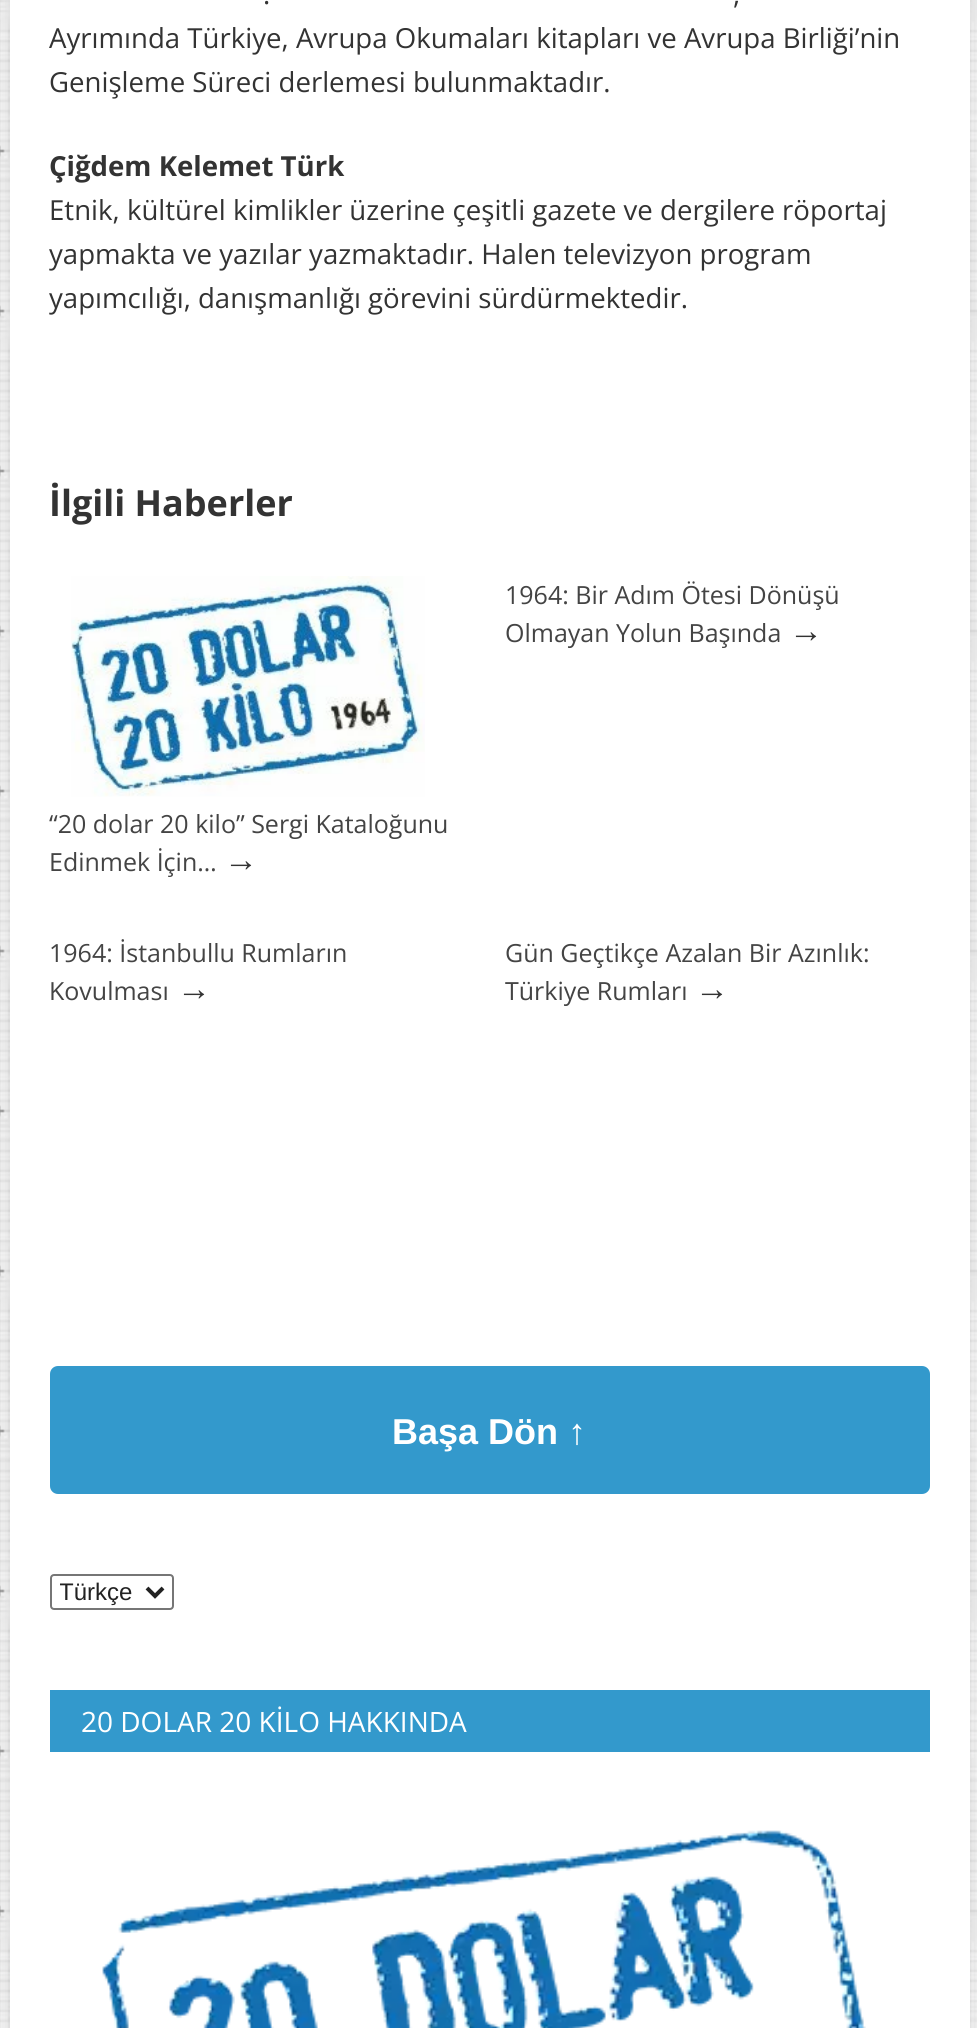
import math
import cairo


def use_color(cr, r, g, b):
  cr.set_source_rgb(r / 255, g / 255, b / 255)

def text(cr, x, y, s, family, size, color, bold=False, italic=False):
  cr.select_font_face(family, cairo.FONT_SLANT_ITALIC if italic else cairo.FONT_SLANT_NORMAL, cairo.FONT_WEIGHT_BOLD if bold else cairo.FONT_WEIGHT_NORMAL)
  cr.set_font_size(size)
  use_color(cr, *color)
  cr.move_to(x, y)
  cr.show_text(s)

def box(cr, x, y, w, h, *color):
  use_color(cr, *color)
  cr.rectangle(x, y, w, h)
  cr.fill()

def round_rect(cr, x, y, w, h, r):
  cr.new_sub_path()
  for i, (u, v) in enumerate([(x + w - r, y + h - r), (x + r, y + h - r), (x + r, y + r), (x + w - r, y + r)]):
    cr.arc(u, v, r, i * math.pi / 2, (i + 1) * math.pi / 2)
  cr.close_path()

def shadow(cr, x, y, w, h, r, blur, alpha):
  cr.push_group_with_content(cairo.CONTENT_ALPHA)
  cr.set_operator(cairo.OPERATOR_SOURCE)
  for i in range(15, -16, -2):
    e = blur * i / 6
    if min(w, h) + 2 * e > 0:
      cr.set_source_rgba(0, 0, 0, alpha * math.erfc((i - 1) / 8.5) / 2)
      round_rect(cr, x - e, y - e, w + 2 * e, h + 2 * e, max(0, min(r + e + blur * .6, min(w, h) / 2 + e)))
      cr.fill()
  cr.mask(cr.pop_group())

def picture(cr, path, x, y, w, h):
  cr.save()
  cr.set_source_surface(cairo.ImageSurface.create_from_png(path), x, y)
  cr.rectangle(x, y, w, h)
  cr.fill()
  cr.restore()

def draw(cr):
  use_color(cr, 255, 255, 255)
  cr.paint()
  picture(cr, "img_01.png", 0, 0, 977, 2028)
  use_color(cr, 0, 0, 0)
  shadow(cr, 10, -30, 960, 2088, 0, 10, 0.1)
  box(cr, 10, 0, 960, 2028, 255, 255, 255)
  picture(cr, "img_02.png", 71, 576, 354, 221)
  use_color(cr, 51, 153, 204)
  round_rect(cr, 50, 1366, 880, 128, 8)
  cr.fill()
  round_rect(cr, 51, 1575, 122, 34, 3)
  use_color(cr, 118, 118, 118)
  cr.stroke()
  cr.new_path()
  cr.move_to(147, 1588)
  cr.line_to(155, 1596)
  cr.line_to(163, 1588)
  use_color(cr, 34, 34, 34)
  cr.set_line_width(4)
  cr.stroke()
  box(cr, 50, 1690, 880, 62, 51, 153, 204)
  picture(cr, "img_03.png", 102, 1830, 764, 198)
  text(cr, 263, 4, ".", "Open Sans", 27.6, (51, 51, 51))
  text(cr, 733, 4, ",", "Open Sans", 27.6, (51, 51, 51))
  text(cr, 49, 48, "Ayrımında Türkiye, Avrupa Okumaları kitapları ve Avrupa Birliği’nin", "Open Sans", 27.6, (51, 51, 51))
  text(cr, 49, 92, "Genişleme Süreci derlemesi bulunmaktadır.", "Open Sans", 27.6, (51, 51, 51))
  text(cr, 49, 176, "Çiğdem Kelemet Türk", "Open Sans", 27.6, (51, 51, 51), bold=True)
  text(cr, 49, 220, "Etnik, kültürel kimlikler üzerine çeşitli gazete ve dergilere röportaj", "Open Sans", 27.6, (51, 51, 51))
  text(cr, 49, 264, "yapmakta ve yazılar yazmaktadır. Halen televizyon program", "Open Sans", 27.6, (51, 51, 51))
  text(cr, 49, 308, "yapımcılığı, danışmanlığı görevini sürdürmektedir.", "Open Sans", 27.6, (51, 51, 51))
  text(cr, 49, 516, "İlgili Haberler", "Open Sans", 36, (51, 51, 51), bold=True)
  text(cr, 505, 604, "1964: Bir Adım Ötesi Dönüşü", "Open Sans", 25, (68, 68, 68))
  text(cr, 505, 642, "Olmayan Yolun Başında", "Open Sans", 25, (68, 68, 68))
  text(cr, 789, 642, "→", "Liberation Sans", 34, (51, 51, 51))
  text(cr, 49, 833, "“20 dolar 20 kilo” Sergi Kataloğunu", "Open Sans", 25, (68, 68, 68))
  text(cr, 49, 871, "Edinmek İçin…", "Open Sans", 25, (68, 68, 68))
  text(cr, 224, 871, "→", "Liberation Sans", 34, (51, 51, 51))
  text(cr, 49, 962, "1964: İstanbullu Rumların", "Open Sans", 25, (68, 68, 68))
  text(cr, 49, 1000, "Kovulması", "Open Sans", 25, (68, 68, 68))
  text(cr, 177, 1000, "→", "Liberation Sans", 34, (51, 51, 51))
  text(cr, 505, 962, "Gün Geçtikçe Azalan Bir Azınlık:", "Open Sans", 25, (68, 68, 68))
  text(cr, 505, 1000, "Türkiye Rumları", "Open Sans", 25, (68, 68, 68))
  text(cr, 695, 1000, "→", "Liberation Sans", 34, (51, 51, 51))
  text(cr, 392, 1444, "Başa Dön ↑", "Liberation Sans", 36, (255, 255, 255), bold=True)
  cr.save()
  cr.rectangle(60, 1576, 80, 32)
  cr.clip()
  text(cr, 59, 1600, "Türkçe", "Liberation Sans", 24, (34, 34, 34))
  cr.restore()
  text(cr, 81, 1732, "20 DOLAR 20 KİLO HAKKINDA", "Open Sans", 28, (255, 255, 255))


surface = cairo.ImageSurface(cairo.FORMAT_RGB24, 977, 2028)
cr = cairo.Context(surface)
options = cairo.FontOptions()
options.set_hint_metrics(cairo.HINT_METRICS_OFF)
options.set_hint_style(cairo.HINT_STYLE_NONE)
cr.set_font_options(options)
cr.set_miter_limit(4)
draw(cr)
surface.write_to_png("out.png")
